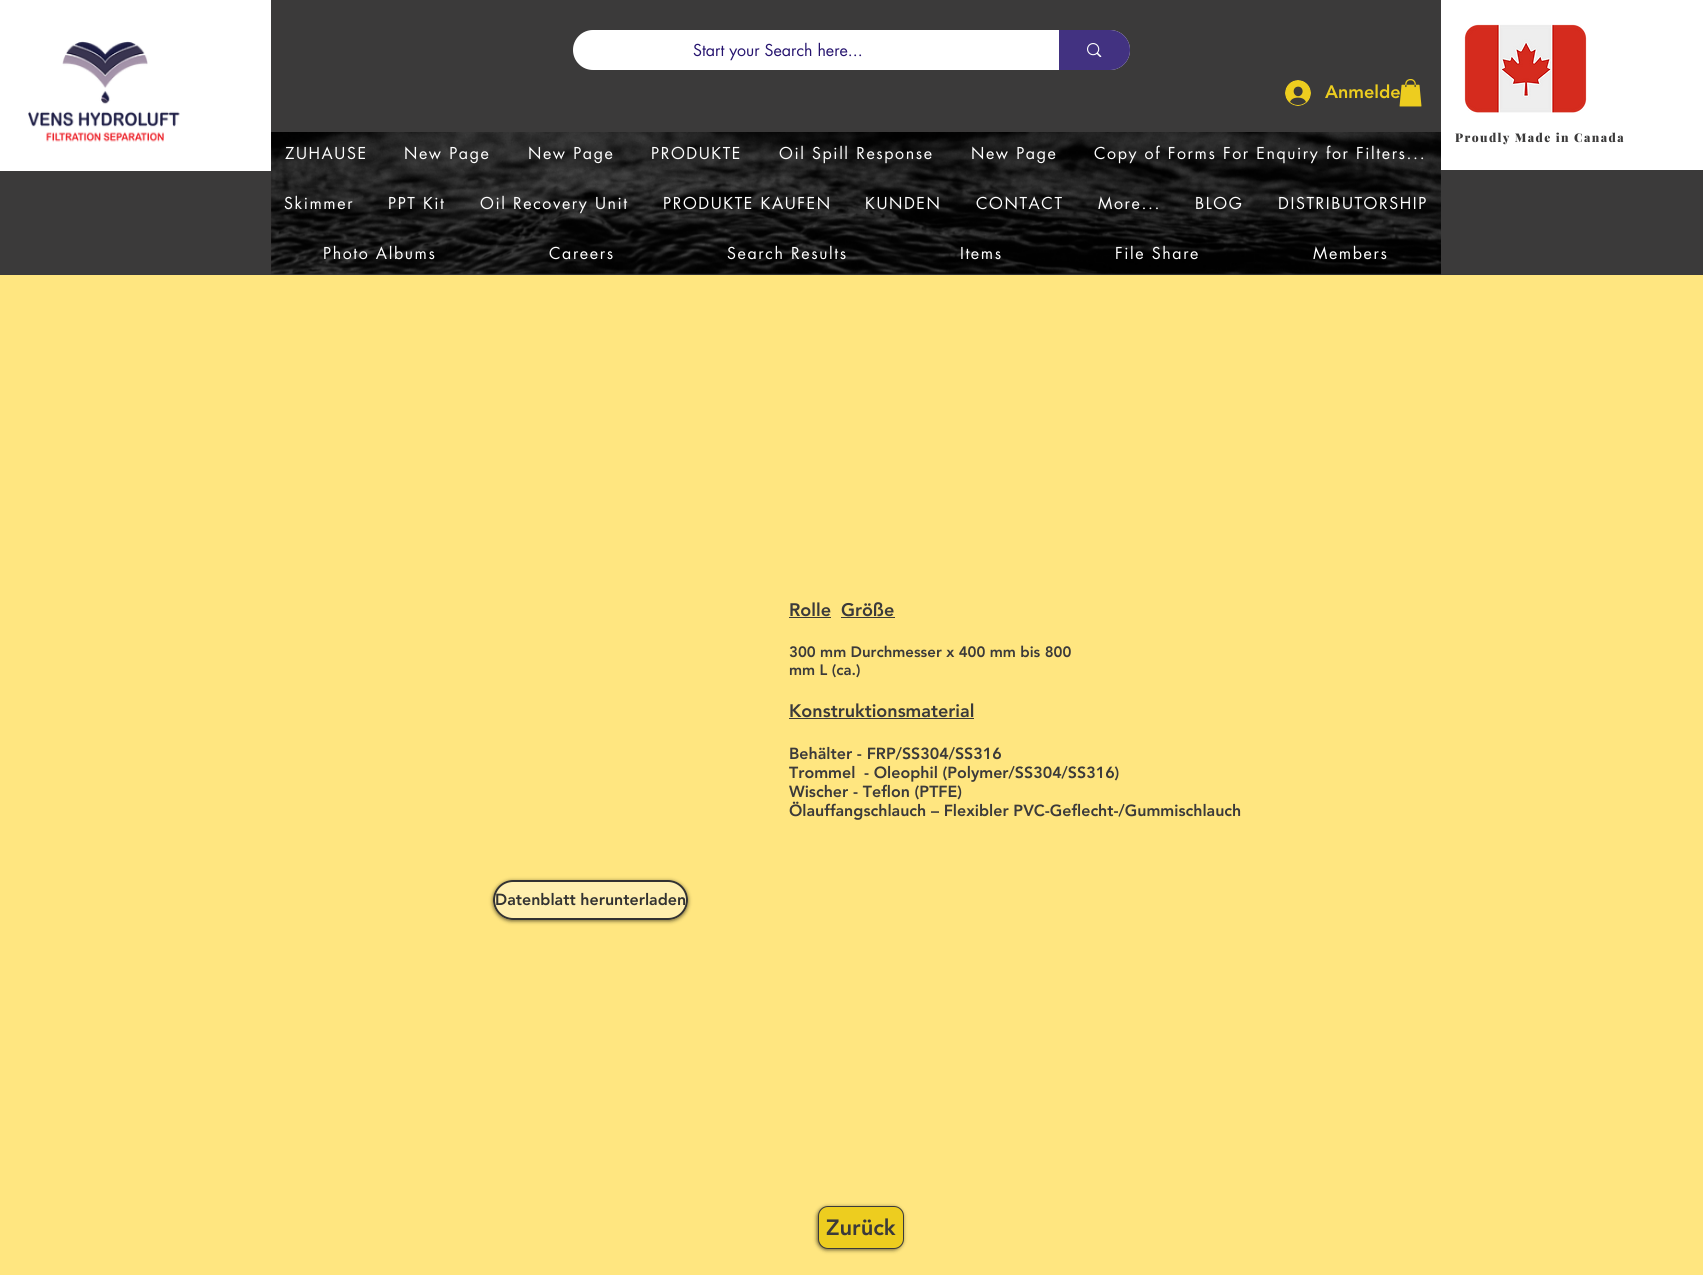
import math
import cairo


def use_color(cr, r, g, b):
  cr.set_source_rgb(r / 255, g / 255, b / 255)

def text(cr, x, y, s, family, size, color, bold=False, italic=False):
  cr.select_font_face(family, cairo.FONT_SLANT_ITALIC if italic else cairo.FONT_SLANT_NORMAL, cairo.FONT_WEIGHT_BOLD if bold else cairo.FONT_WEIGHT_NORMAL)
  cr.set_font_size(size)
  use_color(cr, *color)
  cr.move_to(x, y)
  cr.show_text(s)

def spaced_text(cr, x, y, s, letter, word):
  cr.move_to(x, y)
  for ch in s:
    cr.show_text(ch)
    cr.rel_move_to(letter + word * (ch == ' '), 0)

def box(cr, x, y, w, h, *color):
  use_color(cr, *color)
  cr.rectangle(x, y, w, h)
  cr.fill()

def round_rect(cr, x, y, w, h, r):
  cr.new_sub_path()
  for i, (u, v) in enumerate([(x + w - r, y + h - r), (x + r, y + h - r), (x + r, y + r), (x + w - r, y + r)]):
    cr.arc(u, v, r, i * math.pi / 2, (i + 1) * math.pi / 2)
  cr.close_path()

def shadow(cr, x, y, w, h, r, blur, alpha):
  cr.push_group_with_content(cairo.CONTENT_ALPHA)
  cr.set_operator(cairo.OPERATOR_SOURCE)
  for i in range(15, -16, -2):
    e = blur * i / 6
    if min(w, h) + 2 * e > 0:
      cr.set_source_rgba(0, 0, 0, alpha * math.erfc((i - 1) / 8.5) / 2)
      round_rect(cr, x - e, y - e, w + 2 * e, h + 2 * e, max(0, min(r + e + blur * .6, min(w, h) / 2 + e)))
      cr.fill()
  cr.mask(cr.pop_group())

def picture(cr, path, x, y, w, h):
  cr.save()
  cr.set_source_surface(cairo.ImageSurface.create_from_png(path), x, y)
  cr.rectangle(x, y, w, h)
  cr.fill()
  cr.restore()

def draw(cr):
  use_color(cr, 255, 230, 128)
  cr.paint()
  box(cr, 0, 0, 1703, 275, 59, 58, 58)
  box(cr, 0, 0, 271, 171, 255, 255, 255)
  picture(cr, "img_01.png", 28, 41, 152, 101)
  round_rect(cr, 573, 30, 557, 40, 20)
  cr.fill()
  cr.set_source_rgba(0.149, 0.078, 0.435, 0.87)
  cr.new_path()
  cr.move_to(1059, 30)
  cr.line_to(1110, 30)
  cr.curve_to(1121, 30, 1130, 39, 1130, 50)
  cr.curve_to(1130, 61, 1121, 70, 1110, 70)
  cr.line_to(1059, 70)
  cr.close_path()
  cr.fill()
  picture(cr, "img_02.png", 1087, 43, 15, 14)
  picture(cr, "img_03.png", 1285, 80, 26, 26)
  box(cr, 1441, 0, 262, 170, 255, 255, 255)
  picture(cr, "img_05.png", 1464, 24, 123, 89)
  picture(cr, "img_06.png", 271, 132, 1170, 143)
  box(cr, 789, 617, 42, 1, 59, 58, 58)
  box(cr, 841, 617, 54, 1, 59, 58, 58)
  box(cr, 789, 718, 185, 1, 59, 58, 58)
  cr.save()
  cr.set_fill_rule(cairo.FILL_RULE_EVEN_ODD)
  cr.new_path()
  cr.move_to(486, 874)
  cr.line_to(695, 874)
  cr.line_to(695, 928)
  cr.line_to(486, 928)
  cr.close_path()
  cr.move_to(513, 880)
  cr.line_to(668, 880)
  cr.curve_to(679, 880, 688, 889, 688, 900)
  cr.curve_to(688, 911, 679, 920, 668, 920)
  cr.line_to(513, 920)
  cr.curve_to(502, 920, 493, 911, 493, 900)
  cr.curve_to(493, 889, 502, 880, 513, 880)
  cr.close_path()
  cr.clip()
  use_color(cr, 0, 0, 0)
  shadow(cr, 493, 881, 195, 40, 20, 2, 0.6)
  cr.restore()
  cr.set_source_rgba(1, 1, 1, 0.37)
  round_rect(cr, 494, 881, 193, 38, 19)
  cr.fill_preserve()
  use_color(cr, 50, 50, 50)
  cr.stroke()
  use_color(cr, 0, 0, 0)
  shadow(cr, 817, 1207, 86, 43, 10, 2, 0.6)
  use_color(cr, 237, 205, 31)
  round_rect(cr, 818.5, 1206.5, 85, 42, 9.5)
  cr.fill_preserve()
  use_color(cr, 59, 58, 58)
  cr.set_line_width(1)
  cr.stroke()
  text(cr, 693, 56, "Start your Search here...", "futura", 16, (38, 20, 111))
  text(cr, 1325, 98, "Anmelde", "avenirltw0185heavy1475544 Black", 18, (237, 205, 31))
  picture(cr, "img_04.png", 1399, 79, 23, 28)
  cr.select_font_face("Playfair Display Black")
  cr.set_font_size(12)
  use_color(cr, 59, 58, 58)
  spaced_text(cr, 1455, 142, "Proudly Made in Canada", 1.4, 0)
  cr.select_font_face("futura")
  cr.set_font_size(16)
  use_color(cr, 255, 255, 255)
  spaced_text(cr, 285, 159, "ZUHAUSE", 1.6, 0)
  spaced_text(cr, 404, 159, "New Page", 1.6, 0)
  spaced_text(cr, 528, 159, "New Page", 1.6, 0)
  spaced_text(cr, 651, 159, "PRODUKTE", 1.6, 0)
  spaced_text(cr, 779, 159, "Oil Spill Response", 1.6, 0)
  spaced_text(cr, 971, 159, "New Page", 1.6, 0)
  spaced_text(cr, 1094, 159, "Copy of Forms For Enquiry for Filters...", 1.6, 0)
  spaced_text(cr, 284, 209, "Skimmer", 1.6, 0)
  spaced_text(cr, 388, 209, "PPT Kit", 1.6, 0)
  spaced_text(cr, 480, 209, "Oil Recovery Unit", 1.6, 0)
  spaced_text(cr, 663, 209, "PRODUKTE KAUFEN", 1.6, 0)
  spaced_text(cr, 865, 209, "KUNDEN", 1.6, 0)
  spaced_text(cr, 976, 209, "CONTACT", 1.6, 0)
  spaced_text(cr, 1098, 209, "More...", 1.6, 0)
  spaced_text(cr, 1195, 209, "BLOG", 1.6, 0)
  spaced_text(cr, 1278, 209, "DISTRIBUTORSHIP", 1.6, 0)
  spaced_text(cr, 323, 259, "Photo Albums", 1.6, 0)
  spaced_text(cr, 549, 259, "Careers", 1.6, 0)
  spaced_text(cr, 727, 259, "Search Results", 1.6, 0)
  spaced_text(cr, 960, 259, "Items", 1.6, 0)
  spaced_text(cr, 1115, 259, "File Share", 1.6, 0)
  spaced_text(cr, 1313, 259, "Members", 1.6, 0)
  text(cr, 789, 616, "Rolle", "avenirltw0185heavy1475544 Black", 18, (59, 58, 58))
  text(cr, 841, 616, "Größe", "avenirltw0185heavy1475544 Black", 18, (59, 58, 58))
  text(cr, 789, 657, "300 mm Durchmesser x 400 mm bis 800", "avenirltw0185heavy1475544 Black", 15, (59, 58, 58))
  text(cr, 789, 675, "mm L (ca.)", "avenirltw0185heavy1475544 Black", 15, (59, 58, 58))
  text(cr, 789, 717, "Konstruktionsmaterial", "avenirltw0185heavy1475544 Black", 18, (59, 58, 58))
  text(cr, 789, 759, "Behälter - FRP/SS304/SS316", "avenirltw0185heavy1475544 Black", 16, (59, 58, 58))
  text(cr, 789, 778, "Trommel", "avenirltw0185heavy1475544 Black", 16, (59, 58, 58))
  text(cr, 864, 778, "- Oleophil (Polymer/SS304/SS316)", "avenirltw0185heavy1475544 Black", 16, (59, 58, 58))
  text(cr, 789, 797, "Wischer - Teflon (PTFE)", "avenirltw0185heavy1475544 Black", 16, (59, 58, 58))
  text(cr, 789, 816, "Ölauffangschlauch – Flexibler PVC-Geflecht-/Gummischlauch", "avenirltw0185heavy1475544 Black", 16, (59, 58, 58))
  text(cr, 495, 905, "Datenblatt herunterladen", "avenirltw0185heavy1475544 Black", 16, (50, 50, 50))
  text(cr, 826, 1235, "Zurück", "avenirltw0185heavy1475544 Black", 22, (59, 58, 58))


surface = cairo.ImageSurface(cairo.FORMAT_RGB24, 1703, 1275)
cr = cairo.Context(surface)
options = cairo.FontOptions()
options.set_hint_metrics(cairo.HINT_METRICS_OFF)
options.set_hint_style(cairo.HINT_STYLE_NONE)
cr.set_font_options(options)
cr.set_miter_limit(4)
draw(cr)
surface.write_to_png("out.png")
